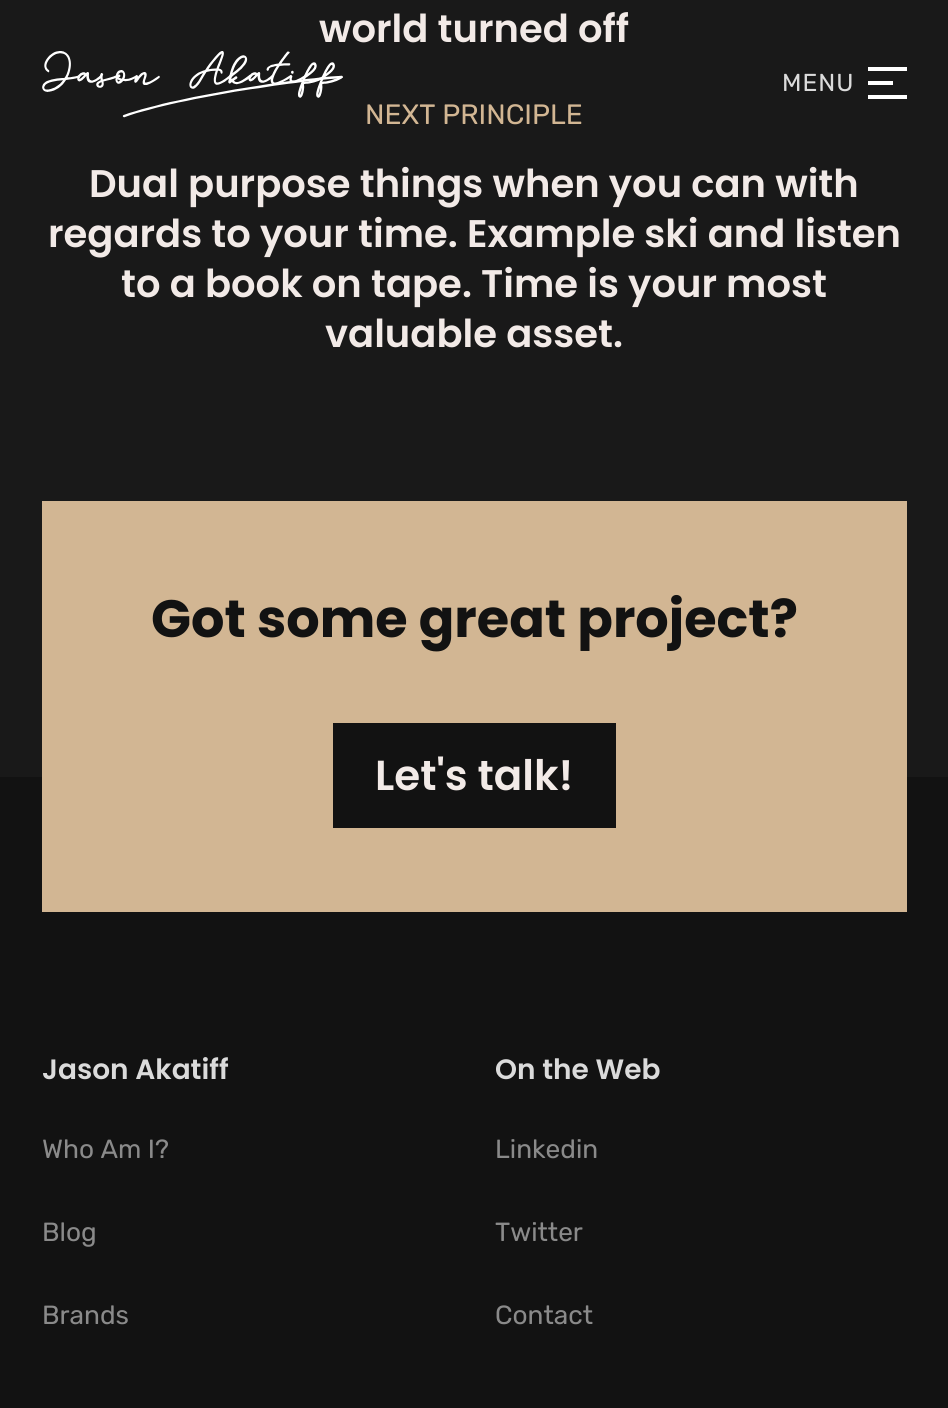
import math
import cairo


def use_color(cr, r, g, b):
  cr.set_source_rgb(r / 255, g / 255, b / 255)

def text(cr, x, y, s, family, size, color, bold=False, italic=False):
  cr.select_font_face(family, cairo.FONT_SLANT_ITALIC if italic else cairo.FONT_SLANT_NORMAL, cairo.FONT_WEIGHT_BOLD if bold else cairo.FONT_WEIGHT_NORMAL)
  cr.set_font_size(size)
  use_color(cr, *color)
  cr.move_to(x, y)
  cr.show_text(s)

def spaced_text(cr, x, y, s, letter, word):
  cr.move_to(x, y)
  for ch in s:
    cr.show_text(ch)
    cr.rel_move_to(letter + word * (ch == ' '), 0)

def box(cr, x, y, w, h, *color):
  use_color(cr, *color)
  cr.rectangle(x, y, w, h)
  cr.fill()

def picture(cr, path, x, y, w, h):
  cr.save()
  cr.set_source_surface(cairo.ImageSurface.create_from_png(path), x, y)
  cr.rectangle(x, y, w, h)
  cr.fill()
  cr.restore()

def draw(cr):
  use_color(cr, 18, 18, 18)
  cr.paint()
  box(cr, 0, 0, 948, 777, 25, 25, 25)
  picture(cr, "img_01.png", 42, 51, 301, 67)
  box(cr, 868, 67, 39, 4, 255, 255, 255)
  box(cr, 868, 81, 25, 4, 255, 255, 255)
  box(cr, 868, 95, 39, 4, 255, 255, 255)
  box(cr, 42, 501, 865, 411, 210, 182, 147)
  box(cr, 333, 723, 283, 105, 18, 18, 18)
  text(cr, 319, 42, "world turned off", "Poppins SemiBold", 38.5, (242, 234, 231))
  text(cr, 365, 124, "NEXT PRINCIPLE", "Rubik", 28, (210, 182, 147))
  text(cr, 89, 197, "Dual purpose things when you can with", "Poppins SemiBold", 38.5, (242, 234, 231))
  text(cr, 48, 247, "regards to your time. Example ski and listen", "Poppins SemiBold", 38.5, (242, 234, 231))
  text(cr, 121, 297, "to a book on tape. Time is your most", "Poppins SemiBold", 38.5, (242, 234, 231))
  text(cr, 325, 347, "valuable asset.", "Poppins SemiBold", 38.5, (242, 234, 231))
  cr.select_font_face("Rubik")
  cr.set_font_size(24.5)
  use_color(cr, 219, 219, 219)
  spaced_text(cr, 782, 91, "MENU", 1, 0)
  text(cr, 151, 637, "Got some great project?", "Poppins", 52.5, (18, 18, 18), bold=True)
  text(cr, 375, 790, "Let's talk!", "Poppins SemiBold", 42, (242, 234, 231))
  text(cr, 42, 1079, "Jason Akatiff", "Poppins SemiBold", 28, (219, 219, 219))
  text(cr, 42, 1158, "Who Am I?", "Rubik", 26.25, (138, 138, 138))
  text(cr, 42, 1241, "Blog", "Rubik", 26.25, (138, 138, 138))
  text(cr, 42, 1324, "Brands", "Rubik", 26.25, (138, 138, 138))
  text(cr, 495, 1079, "On the Web", "Poppins SemiBold", 28, (219, 219, 219))
  text(cr, 495, 1158, "Linkedin", "Rubik", 26.25, (138, 138, 138))
  text(cr, 495, 1241, "Twitter", "Rubik", 26.25, (138, 138, 138))
  text(cr, 495, 1324, "Contact", "Rubik", 26.25, (138, 138, 138))


surface = cairo.ImageSurface(cairo.FORMAT_RGB24, 948, 1408)
cr = cairo.Context(surface)
options = cairo.FontOptions()
options.set_hint_metrics(cairo.HINT_METRICS_OFF)
options.set_hint_style(cairo.HINT_STYLE_NONE)
cr.set_font_options(options)
cr.set_miter_limit(4)
draw(cr)
surface.write_to_png("out.png")
